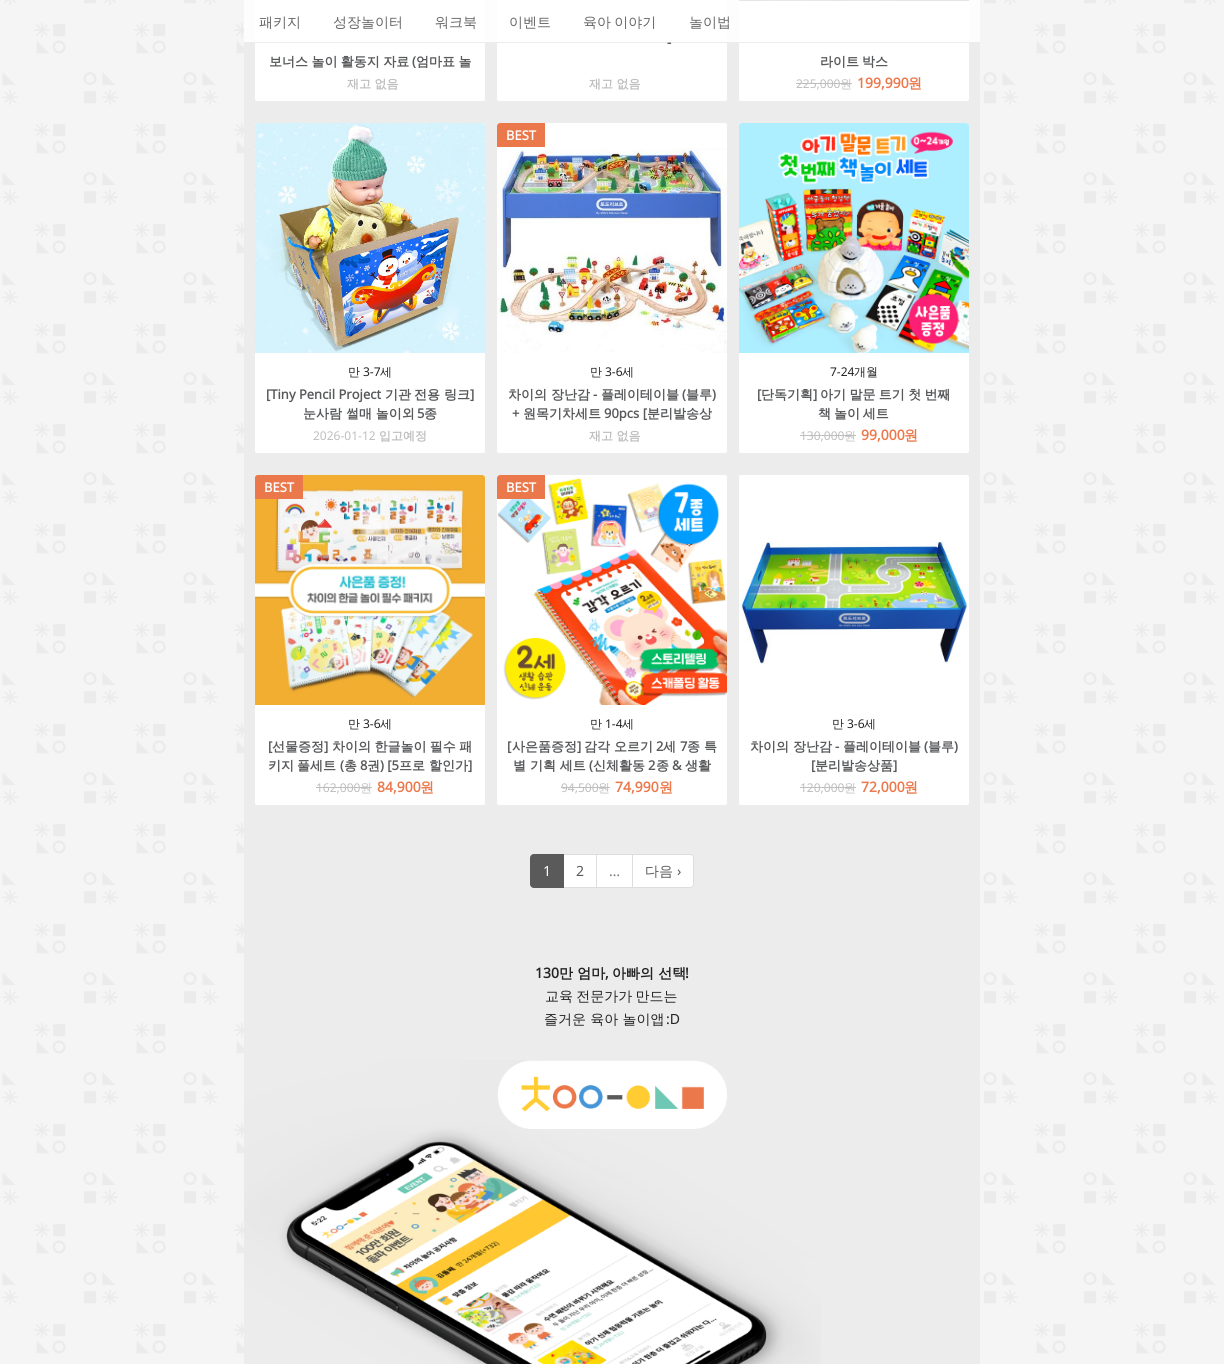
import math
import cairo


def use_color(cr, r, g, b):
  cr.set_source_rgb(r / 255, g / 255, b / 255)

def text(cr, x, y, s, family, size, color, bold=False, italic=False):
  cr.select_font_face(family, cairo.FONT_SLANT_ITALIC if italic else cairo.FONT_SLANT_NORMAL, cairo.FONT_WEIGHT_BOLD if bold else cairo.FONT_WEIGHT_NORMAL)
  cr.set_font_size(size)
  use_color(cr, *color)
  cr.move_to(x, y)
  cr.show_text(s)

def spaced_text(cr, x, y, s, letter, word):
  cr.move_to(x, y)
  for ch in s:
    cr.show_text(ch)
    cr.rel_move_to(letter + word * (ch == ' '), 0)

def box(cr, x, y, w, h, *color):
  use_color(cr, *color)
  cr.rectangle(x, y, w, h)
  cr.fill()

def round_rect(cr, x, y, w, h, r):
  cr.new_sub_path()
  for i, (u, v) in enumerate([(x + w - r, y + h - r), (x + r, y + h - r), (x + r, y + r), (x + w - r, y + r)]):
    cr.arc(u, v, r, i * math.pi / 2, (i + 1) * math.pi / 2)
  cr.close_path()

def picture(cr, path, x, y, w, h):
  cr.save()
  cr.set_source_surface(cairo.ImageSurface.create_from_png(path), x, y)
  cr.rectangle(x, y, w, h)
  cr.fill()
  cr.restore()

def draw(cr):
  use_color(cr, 255, 255, 255)
  cr.paint()
  picture(cr, "img_01.png", 0, 0, 1224, 1364)
  box(cr, 244, 0, 736, 1364, 236, 236, 236)
  use_color(cr, 255, 255, 255)
  round_rect(cr, 254.5, -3.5, 231, 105, 2.5)
  cr.fill_preserve()
  use_color(cr, 236, 236, 236)
  cr.set_line_width(1)
  cr.stroke()
  box(cr, 255, 0, 230, 1, 252, 251, 246)
  use_color(cr, 255, 255, 255)
  round_rect(cr, 496.5, -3.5, 231, 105, 2.5)
  cr.fill_preserve()
  use_color(cr, 236, 236, 236)
  cr.stroke()
  box(cr, 497, 0, 230, 1, 252, 251, 246)
  use_color(cr, 255, 255, 255)
  round_rect(cr, 738.5, -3.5, 231, 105, 2.5)
  cr.fill_preserve()
  use_color(cr, 236, 236, 236)
  cr.stroke()
  picture(cr, "img_02.png", 739, 0, 230, 1)
  cr.set_source_rgba(1, 1, 1, 0.9)
  cr.rectangle(244, 0, 736, 42)
  cr.fill()
  box(cr, 255, 42, 714, 1, 236, 236, 236)
  box(cr, 796, 83, 56, 1, 190, 190, 190)
  use_color(cr, 255, 255, 255)
  round_rect(cr, 254.5, 122.5, 231, 331, 2.5)
  cr.fill_preserve()
  use_color(cr, 236, 236, 236)
  cr.stroke()
  picture(cr, "img_03.png", 255, 123, 230, 230)
  use_color(cr, 255, 255, 255)
  round_rect(cr, 496.5, 122.5, 231, 331, 2.5)
  cr.fill_preserve()
  use_color(cr, 236, 236, 236)
  cr.stroke()
  use_color(cr, 235, 120, 75)
  cr.new_path()
  cr.move_to(500, 123)
  cr.line_to(545, 123)
  cr.line_to(545, 147)
  cr.line_to(497, 147)
  cr.line_to(497, 126)
  cr.curve_to(497, 124.5, 498.5, 123, 500, 123)
  cr.close_path()
  cr.fill()
  picture(cr, "img_04.png", 497, 148, 230, 205)
  use_color(cr, 255, 255, 255)
  round_rect(cr, 738.5, 122.5, 231, 331, 2.5)
  cr.fill_preserve()
  use_color(cr, 236, 236, 236)
  cr.stroke()
  picture(cr, "img_05.png", 739, 123, 230, 230)
  box(cr, 800, 435, 56, 1, 190, 190, 190)
  use_color(cr, 255, 255, 255)
  round_rect(cr, 254.5, 474.5, 231, 331, 2.5)
  cr.fill_preserve()
  use_color(cr, 236, 236, 236)
  cr.stroke()
  picture(cr, "img_06.png", 255, 475, 230, 230)
  use_color(cr, 235, 120, 75)
  cr.new_path()
  cr.move_to(258, 475)
  cr.line_to(303, 475)
  cr.line_to(303, 499)
  cr.line_to(255, 499)
  cr.line_to(255, 478)
  cr.curve_to(255, 476.5, 256.5, 475, 258, 475)
  cr.close_path()
  cr.fill()
  box(cr, 316, 787, 56, 1, 190, 190, 190)
  use_color(cr, 255, 255, 255)
  round_rect(cr, 496.5, 474.5, 231, 331, 2.5)
  cr.fill_preserve()
  use_color(cr, 236, 236, 236)
  cr.stroke()
  picture(cr, "img_07.png", 497, 478, 230, 227)
  use_color(cr, 235, 120, 75)
  cr.new_path()
  cr.move_to(500, 475)
  cr.line_to(545, 475)
  cr.line_to(545, 499)
  cr.line_to(497, 499)
  cr.line_to(497, 478)
  cr.curve_to(497, 476.5, 498.5, 475, 500, 475)
  cr.close_path()
  cr.fill()
  box(cr, 561, 787, 49, 1, 190, 190, 190)
  use_color(cr, 255, 255, 255)
  round_rect(cr, 738.5, 474.5, 231, 331, 2.5)
  cr.fill_preserve()
  use_color(cr, 236, 236, 236)
  cr.stroke()
  picture(cr, "img_08.png", 739, 541, 229, 124)
  box(cr, 800, 787, 56, 1, 190, 190, 190)
  use_color(cr, 255, 255, 255)
  cr.rectangle(563.5, 854.5, 33, 33)
  cr.fill_preserve()
  use_color(cr, 221, 221, 221)
  cr.stroke()
  use_color(cr, 90, 90, 90)
  cr.new_path()
  cr.move_to(534, 854.5)
  cr.line_to(563.5, 854.5)
  cr.line_to(563.5, 887.5)
  cr.line_to(534, 887.5)
  cr.curve_to(532, 887.5, 530.5, 886, 530.5, 884)
  cr.line_to(530.5, 858)
  cr.curve_to(530.5, 856, 532, 854.5, 534, 854.5)
  cr.close_path()
  cr.fill_preserve()
  cr.stroke()
  use_color(cr, 255, 255, 255)
  cr.rectangle(596.5, 854.5, 36, 33)
  cr.fill_preserve()
  use_color(cr, 221, 221, 221)
  cr.stroke()
  use_color(cr, 255, 255, 255)
  cr.new_path()
  cr.move_to(632.5, 854.5)
  cr.line_to(690, 854.5)
  cr.curve_to(692, 854.5, 693.5, 856, 693.5, 858)
  cr.line_to(693.5, 884)
  cr.curve_to(693.5, 886, 692, 887.5, 690, 887.5)
  cr.line_to(632.5, 887.5)
  cr.close_path()
  cr.fill_preserve()
  use_color(cr, 221, 221, 221)
  cr.stroke()
  picture(cr, "img_09.png", 244, 1060, 577, 304)
  text(cr, 259, 27, "패키지", "WenQuanYi Zen Hei Medium", 14, (102, 102, 102))
  text(cr, 333, 27, "성장놀이터", "WenQuanYi Zen Hei Medium", 14, (102, 102, 102))
  text(cr, 435, 27, "워크북", "WenQuanYi Zen Hei Medium", 14, (102, 102, 102))
  text(cr, 509, 27, "이벤트", "WenQuanYi Zen Hei Medium", 14, (102, 102, 102))
  spaced_text(cr, 583, 27, "육아 이야기", 0, -1)
  text(cr, 689, 27, "놀이법", "WenQuanYi Zen Hei Medium", 14, (102, 102, 102))
  cr.select_font_face("WenQuanYi Zen Hei", cairo.FONT_SLANT_NORMAL, cairo.FONT_WEIGHT_BOLD)
  cr.set_font_size(13)
  use_color(cr, 88, 89, 91)
  spaced_text(cr, 269, 66, "보너스 놀이 활동지 자료", 0, -0.5)
  text(cr, 412, 66, "(", "Noto Sans", 13, (88, 89, 91), bold=True)
  cr.select_font_face("WenQuanYi Zen Hei", cairo.FONT_SLANT_NORMAL, cairo.FONT_WEIGHT_BOLD)
  spaced_text(cr, 416, 66, "엄마표 놀", 0, -0.5)
  text(cr, 347, 88, "재고 없음", "WenQuanYi Zen Hei", 12, (190, 190, 190), bold=True)
  text(cr, 667, 47, "-", "Noto Sans", 13, (88, 89, 91), bold=True)
  text(cr, 589, 88, "재고 없음", "WenQuanYi Zen Hei", 12, (190, 190, 190), bold=True)
  cr.set_font_size(13)
  use_color(cr, 88, 89, 91)
  spaced_text(cr, 820, 66, "라이트 박스", 0, -1)
  text(cr, 796, 88, "225,000", "Noto Sans", 12, (190, 190, 190))
  text(cr, 840, 88, "원", "WenQuanYi Zen Hei Medium", 12, (190, 190, 190))
  text(cr, 857, 88, "199,990", "Noto Sans", 14, (235, 120, 75), bold=True)
  text(cr, 908, 88, "원", "WenQuanYi Zen Hei", 14, (235, 120, 75), bold=True)
  text(cr, 348, 376, "만", "WenQuanYi Zen Hei Medium", 12, (35, 35, 35))
  text(cr, 363, 376, "3-7", "Noto Sans", 12, (35, 35, 35))
  text(cr, 380, 376, "세", "WenQuanYi Zen Hei Medium", 12, (35, 35, 35))
  text(cr, 266, 399, "[Tiny Pencil Project", "Noto Sans", 13, (88, 89, 91), bold=True)
  text(cr, 385, 399, "기관", "WenQuanYi Zen Hei", 13, (88, 89, 91), bold=True)
  text(cr, 414, 399, "전용", "WenQuanYi Zen Hei", 13, (88, 89, 91), bold=True)
  text(cr, 444, 399, "링크", "WenQuanYi Zen Hei", 13, (88, 89, 91), bold=True)
  text(cr, 470, 399, "]", "Noto Sans", 13, (88, 89, 91), bold=True)
  text(cr, 303, 418, "눈사람 썰매 놀이외", "WenQuanYi Zen Hei", 13, (88, 89, 91), bold=True)
  text(cr, 417, 418, "5", "Noto Sans", 13, (88, 89, 91), bold=True)
  text(cr, 424, 418, "종", "WenQuanYi Zen Hei", 13, (88, 89, 91), bold=True)
  text(cr, 313, 440, "2026-01-12", "Noto Sans", 12, (190, 190, 190))
  text(cr, 379, 440, "입고예정", "WenQuanYi Zen Hei", 12, (190, 190, 190), bold=True)
  text(cr, 506, 140, "BEST", "Noto Sans", 13, (255, 255, 255), bold=True)
  text(cr, 590, 376, "만", "WenQuanYi Zen Hei Medium", 12, (35, 35, 35))
  text(cr, 605, 376, "3-6", "Noto Sans", 12, (35, 35, 35))
  text(cr, 622, 376, "세", "WenQuanYi Zen Hei Medium", 12, (35, 35, 35))
  text(cr, 508, 399, "차이의 장난감", "WenQuanYi Zen Hei", 13, (88, 89, 91), bold=True)
  text(cr, 593, 399, "-", "Noto Sans", 13, (88, 89, 91), bold=True)
  text(cr, 601, 399, "플레이테이블", "WenQuanYi Zen Hei", 13, (88, 89, 91), bold=True)
  text(cr, 682, 399, "(", "Noto Sans", 13, (88, 89, 91), bold=True)
  text(cr, 686, 399, "블루", "WenQuanYi Zen Hei", 13, (88, 89, 91), bold=True)
  text(cr, 712, 399, ")", "Noto Sans", 13, (88, 89, 91), bold=True)
  text(cr, 512, 418, "+", "Noto Sans", 13, (88, 89, 91), bold=True)
  text(cr, 523, 418, "원목기차세트", "WenQuanYi Zen Hei", 13, (88, 89, 91), bold=True)
  text(cr, 604, 418, "90pcs [", "Noto Sans", 13, (88, 89, 91), bold=True)
  text(cr, 647, 418, "분리발송상", "WenQuanYi Zen Hei", 13, (88, 89, 91), bold=True)
  text(cr, 589, 440, "재고 없음", "WenQuanYi Zen Hei", 12, (190, 190, 190), bold=True)
  text(cr, 830, 376, "7-24", "Noto Sans", 12, (35, 35, 35))
  text(cr, 854, 376, "개월", "WenQuanYi Zen Hei Medium", 12, (35, 35, 35))
  text(cr, 757, 399, "[", "Noto Sans", 13, (88, 89, 91), bold=True)
  text(cr, 761, 399, "단독기획", "WenQuanYi Zen Hei", 13, (88, 89, 91), bold=True)
  text(cr, 813, 399, "]", "Noto Sans", 13, (88, 89, 91), bold=True)
  cr.select_font_face("WenQuanYi Zen Hei", cairo.FONT_SLANT_NORMAL, cairo.FONT_WEIGHT_BOLD)
  spaced_text(cr, 820, 399, "아기 말문 트기 첫 번째", 0, -0.5)
  spaced_text(cr, 818, 418, "책 놀이 세트", 0, -1)
  text(cr, 800, 440, "130,000", "Noto Sans", 12, (190, 190, 190))
  text(cr, 844, 440, "원", "WenQuanYi Zen Hei Medium", 12, (190, 190, 190))
  text(cr, 861, 440, "99,000", "Noto Sans", 14, (235, 120, 75), bold=True)
  text(cr, 904, 440, "원", "WenQuanYi Zen Hei", 14, (235, 120, 75), bold=True)
  text(cr, 264, 492, "BEST", "Noto Sans", 13, (255, 255, 255), bold=True)
  text(cr, 348, 728, "만", "WenQuanYi Zen Hei Medium", 12, (35, 35, 35))
  text(cr, 363, 728, "3-6", "Noto Sans", 12, (35, 35, 35))
  text(cr, 380, 728, "세", "WenQuanYi Zen Hei Medium", 12, (35, 35, 35))
  text(cr, 268, 751, "[", "Noto Sans", 13, (88, 89, 91), bold=True)
  text(cr, 272, 751, "선물증정", "WenQuanYi Zen Hei", 13, (88, 89, 91), bold=True)
  text(cr, 324, 751, "]", "Noto Sans", 13, (88, 89, 91), bold=True)
  cr.select_font_face("WenQuanYi Zen Hei", cairo.FONT_SLANT_NORMAL, cairo.FONT_WEIGHT_BOLD)
  spaced_text(cr, 332, 751, "차이의 한글놀이 필수 패", 0, -0.5)
  text(cr, 268, 770, "키지", "WenQuanYi Zen Hei", 13, (88, 89, 91), bold=True)
  text(cr, 297, 770, "풀세트", "WenQuanYi Zen Hei", 13, (88, 89, 91), bold=True)
  text(cr, 340, 770, "(", "Noto Sans", 13, (88, 89, 91), bold=True)
  text(cr, 344, 770, "총", "WenQuanYi Zen Hei", 13, (88, 89, 91), bold=True)
  text(cr, 360, 770, "8", "Noto Sans", 13, (88, 89, 91), bold=True)
  text(cr, 367, 770, "권", "WenQuanYi Zen Hei", 13, (88, 89, 91), bold=True)
  text(cr, 380, 770, ") [5", "Noto Sans", 13, (88, 89, 91), bold=True)
  text(cr, 399, 770, "프로", "WenQuanYi Zen Hei", 13, (88, 89, 91), bold=True)
  text(cr, 429, 770, "할인가", "WenQuanYi Zen Hei", 13, (88, 89, 91), bold=True)
  text(cr, 468, 770, "]", "Noto Sans", 13, (88, 89, 91), bold=True)
  text(cr, 316, 792, "162,000", "Noto Sans", 12, (190, 190, 190))
  text(cr, 360, 792, "원", "WenQuanYi Zen Hei Medium", 12, (190, 190, 190))
  text(cr, 377, 792, "84,900", "Noto Sans", 14, (235, 120, 75), bold=True)
  text(cr, 420, 792, "원", "WenQuanYi Zen Hei", 14, (235, 120, 75), bold=True)
  text(cr, 506, 492, "BEST", "Noto Sans", 13, (255, 255, 255), bold=True)
  text(cr, 590, 728, "만", "WenQuanYi Zen Hei Medium", 12, (35, 35, 35))
  text(cr, 605, 728, "1-4", "Noto Sans", 12, (35, 35, 35))
  text(cr, 622, 728, "세", "WenQuanYi Zen Hei Medium", 12, (35, 35, 35))
  text(cr, 507, 751, "[", "Noto Sans", 13, (88, 89, 91), bold=True)
  text(cr, 512, 751, "사은품증정", "WenQuanYi Zen Hei", 13, (88, 89, 91), bold=True)
  text(cr, 577, 751, "]", "Noto Sans", 13, (88, 89, 91), bold=True)
  text(cr, 584, 751, "감각 오르기", "WenQuanYi Zen Hei", 13, (88, 89, 91), bold=True)
  text(cr, 656, 751, "2", "Noto Sans", 13, (88, 89, 91), bold=True)
  text(cr, 663, 751, "세", "WenQuanYi Zen Hei", 13, (88, 89, 91), bold=True)
  text(cr, 680, 751, "7", "Noto Sans", 13, (88, 89, 91), bold=True)
  text(cr, 687, 751, "종 특", "WenQuanYi Zen Hei", 13, (88, 89, 91), bold=True)
  text(cr, 513, 770, "별 기획 세트", "WenQuanYi Zen Hei", 13, (88, 89, 91), bold=True)
  text(cr, 589, 770, "(", "Noto Sans", 13, (88, 89, 91), bold=True)
  text(cr, 593, 770, "신체활동", "WenQuanYi Zen Hei", 13, (88, 89, 91), bold=True)
  text(cr, 648, 770, "2", "Noto Sans", 13, (88, 89, 91), bold=True)
  text(cr, 656, 770, "종", "WenQuanYi Zen Hei", 13, (88, 89, 91), bold=True)
  text(cr, 672, 770, "&", "Noto Sans", 13, (88, 89, 91), bold=True)
  text(cr, 685, 770, "생활", "WenQuanYi Zen Hei", 13, (88, 89, 91), bold=True)
  text(cr, 561, 792, "94,500", "Noto Sans", 12, (190, 190, 190))
  text(cr, 598, 792, "원", "WenQuanYi Zen Hei Medium", 12, (190, 190, 190))
  text(cr, 615, 792, "74,990", "Noto Sans", 14, (235, 120, 75), bold=True)
  text(cr, 659, 792, "원", "WenQuanYi Zen Hei", 14, (235, 120, 75), bold=True)
  text(cr, 832, 728, "만", "WenQuanYi Zen Hei Medium", 12, (35, 35, 35))
  text(cr, 847, 728, "3-6", "Noto Sans", 12, (35, 35, 35))
  text(cr, 864, 728, "세", "WenQuanYi Zen Hei Medium", 12, (35, 35, 35))
  text(cr, 750, 751, "차이의 장난감", "WenQuanYi Zen Hei", 13, (88, 89, 91), bold=True)
  text(cr, 835, 751, "-", "Noto Sans", 13, (88, 89, 91), bold=True)
  text(cr, 843, 751, "플레이테이블", "WenQuanYi Zen Hei", 13, (88, 89, 91), bold=True)
  text(cr, 924, 751, "(", "Noto Sans", 13, (88, 89, 91), bold=True)
  text(cr, 928, 751, "블루", "WenQuanYi Zen Hei", 13, (88, 89, 91), bold=True)
  text(cr, 954, 751, ")", "Noto Sans", 13, (88, 89, 91), bold=True)
  text(cr, 811, 770, "[", "Noto Sans", 13, (88, 89, 91), bold=True)
  text(cr, 815, 770, "분리발송상품", "WenQuanYi Zen Hei", 13, (88, 89, 91), bold=True)
  text(cr, 893, 770, "]", "Noto Sans", 13, (88, 89, 91), bold=True)
  text(cr, 800, 792, "120,000", "Noto Sans", 12, (190, 190, 190))
  text(cr, 844, 792, "원", "WenQuanYi Zen Hei Medium", 12, (190, 190, 190))
  text(cr, 861, 792, "72,000", "Noto Sans", 14, (235, 120, 75), bold=True)
  text(cr, 904, 792, "원", "WenQuanYi Zen Hei", 14, (235, 120, 75), bold=True)
  text(cr, 543, 876, "1", "Noto Sans", 14, (255, 255, 255))
  text(cr, 576, 876, "2", "Noto Sans", 14, (88, 89, 91))
  text(cr, 609, 876, "…", "Noto Sans", 14, (119, 119, 119))
  text(cr, 645, 876, "다음", "WenQuanYi Zen Hei Medium", 14, (88, 89, 91))
  text(cr, 677, 876, "›", "Noto Sans", 14, (88, 89, 91))
  text(cr, 535, 978, "130", "Noto Sans", 14, (35, 35, 35), bold=True)
  text(cr, 559, 978, "만 엄마", "WenQuanYi Zen Hei", 14, (35, 35, 35), bold=True)
  text(cr, 605, 978, ",", "Noto Sans", 14, (35, 35, 35), bold=True)
  text(cr, 612, 978, "아빠의 선택", "WenQuanYi Zen Hei", 14, (35, 35, 35), bold=True)
  text(cr, 685, 978, "!", "Noto Sans", 14, (35, 35, 35), bold=True)
  cr.select_font_face("WenQuanYi Zen Hei Medium")
  spaced_text(cr, 545, 1001, "교육 전문가가 만드는", 0, -1)
  text(cr, 544, 1024, "즐거운 육아 놀이앱", "WenQuanYi Zen Hei Medium", 14, (35, 35, 35))
  text(cr, 666, 1024, ":D", "Noto Sans", 14, (35, 35, 35))


surface = cairo.ImageSurface(cairo.FORMAT_RGB24, 1224, 1364)
cr = cairo.Context(surface)
options = cairo.FontOptions()
options.set_hint_metrics(cairo.HINT_METRICS_OFF)
options.set_hint_style(cairo.HINT_STYLE_NONE)
cr.set_font_options(options)
cr.set_miter_limit(4)
draw(cr)
surface.write_to_png("out.png")
